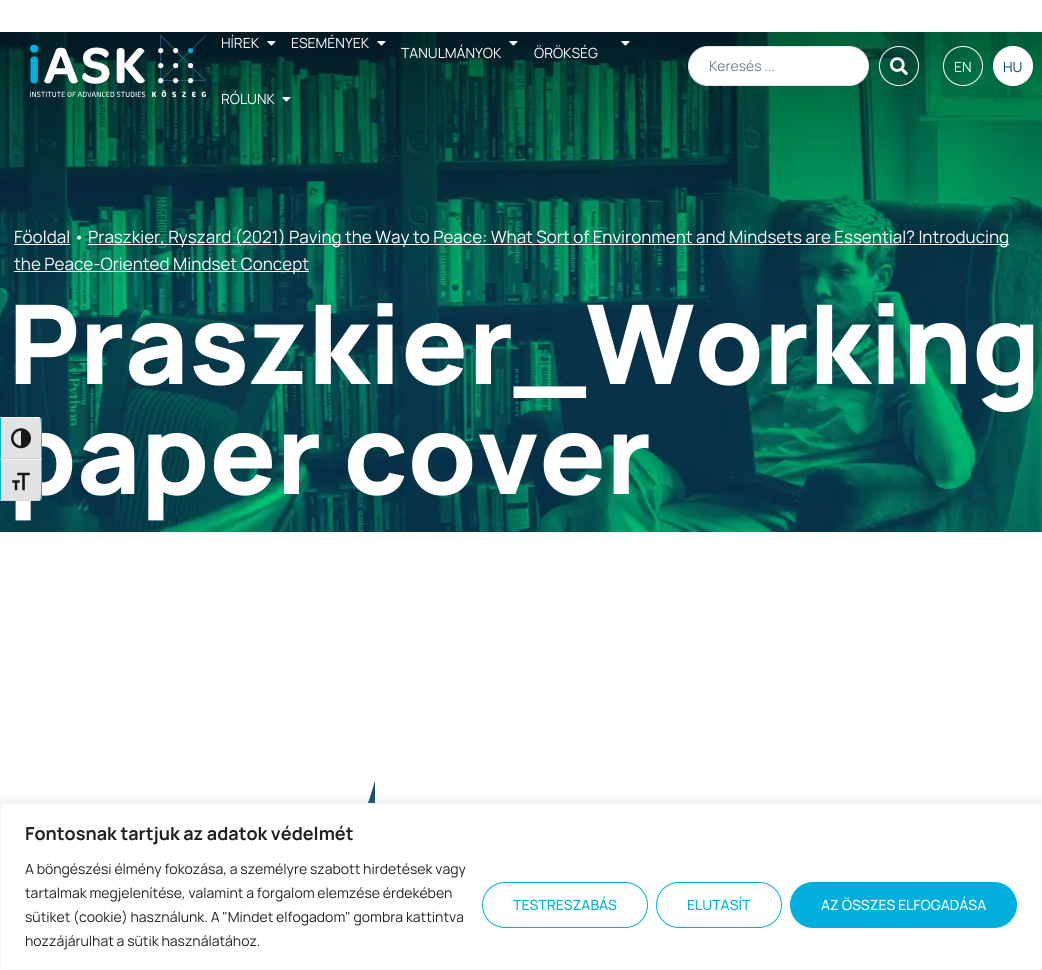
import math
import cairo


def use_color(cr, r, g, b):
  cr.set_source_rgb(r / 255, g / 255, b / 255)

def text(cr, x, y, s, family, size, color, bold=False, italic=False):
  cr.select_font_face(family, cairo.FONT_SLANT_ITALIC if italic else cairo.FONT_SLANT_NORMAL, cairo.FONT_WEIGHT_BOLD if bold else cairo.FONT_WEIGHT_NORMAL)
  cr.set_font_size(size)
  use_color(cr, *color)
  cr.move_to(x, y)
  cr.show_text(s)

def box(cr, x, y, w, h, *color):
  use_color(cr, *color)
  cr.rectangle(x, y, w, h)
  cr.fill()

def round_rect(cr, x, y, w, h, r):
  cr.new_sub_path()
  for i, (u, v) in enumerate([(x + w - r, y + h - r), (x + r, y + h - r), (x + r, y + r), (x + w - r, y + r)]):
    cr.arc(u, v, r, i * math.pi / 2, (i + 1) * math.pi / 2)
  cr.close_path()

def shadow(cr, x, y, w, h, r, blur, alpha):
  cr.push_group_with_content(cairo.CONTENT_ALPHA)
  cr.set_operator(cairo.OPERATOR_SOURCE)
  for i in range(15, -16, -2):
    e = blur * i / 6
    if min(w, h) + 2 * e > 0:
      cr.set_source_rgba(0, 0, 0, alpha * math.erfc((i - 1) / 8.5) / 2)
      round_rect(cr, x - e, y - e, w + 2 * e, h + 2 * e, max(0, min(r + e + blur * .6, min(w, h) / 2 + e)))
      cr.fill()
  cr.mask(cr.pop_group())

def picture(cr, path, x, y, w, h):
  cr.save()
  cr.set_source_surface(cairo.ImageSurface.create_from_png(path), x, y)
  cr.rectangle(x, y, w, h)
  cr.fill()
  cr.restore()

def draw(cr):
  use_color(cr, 255, 255, 255)
  cr.paint()
  picture(cr, "img_08.png", 0, 32, 1042, 500)
  picture(cr, "img_01.png", 30, 35, 176, 62)
  picture(cr, "img_02.png", 267, 41, 9, 5)
  picture(cr, "img_03.png", 377, 41, 9, 5)
  picture(cr, "img_04.png", 509, 41, 9, 5)
  picture(cr, "img_05.png", 621, 41, 9, 5)
  picture(cr, "img_06.png", 282, 97, 9, 5)
  use_color(cr, 255, 255, 255)
  round_rect(cr, 688.5, 46.5, 180, 39, 19.5)
  cr.fill_preserve()
  use_color(cr, 225, 229, 235)
  cr.set_line_width(1)
  cr.stroke()
  cr.arc(899, 66, 19.5, 0, 2 * math.pi)
  use_color(cr, 255, 255, 255)
  cr.stroke()
  picture(cr, "img_07.png", 890, 57, 18, 19)
  cr.arc(963, 66, 19.5, 0, 2 * math.pi)
  cr.stroke()
  cr.arc(1013, 66, 19.5, 0, 2 * math.pi)
  cr.fill_preserve()
  cr.stroke()
  box(cr, 14, 244, 56, 1, 255, 255, 255)
  box(cr, 88, 244, 921, 1, 255, 255, 255)
  box(cr, 14, 271, 295, 1, 255, 255, 255)
  picture(cr, "img_11.png", 148, 780, 227, 23)
  use_color(cr, 172, 171, 171)
  shadow(cr, 0, 802, 1042, 167, 0, 5, 0.3)
  use_color(cr, 255, 255, 255)
  cr.rectangle(0.5, 803.5, 1041, 166)
  cr.fill_preserve()
  use_color(cr, 244, 244, 244)
  cr.stroke()
  round_rect(cr, 482.5, 882.5, 165, 45, 22.5)
  use_color(cr, 0, 175, 219)
  cr.stroke()
  round_rect(cr, 656.5, 882.5, 125, 45, 22.5)
  cr.stroke()
  round_rect(cr, 790.5, 882.5, 226, 45, 22.5)
  cr.fill_preserve()
  cr.stroke()
  text(cr, 221, 48, "HÍREK", "Manrope", 14, (255, 255, 255))
  text(cr, 291, 48, "ESEMÉNYEK", "Manrope", 14, (255, 255, 255))
  text(cr, 401, 58, "TANULMÁNYOK", "Manrope", 14, (255, 255, 255))
  text(cr, 534, 58, "ÖRÖKSÉG", "Manrope", 14, (255, 255, 255))
  text(cr, 221, 104, "RÓLUNK", "Manrope", 14, (255, 255, 255))
  text(cr, 709, 71, "Keresés ...", "Manrope", 14, (113, 126, 134))
  text(cr, 954, 72, "EN", "Manrope", 14, (255, 255, 255))
  text(cr, 1003, 72, "HU", "Manrope", 14, (0, 69, 112))
  text(cr, 14, 243, "Főoldal •", "Manrope", 17, (255, 255, 255))
  text(cr, 88, 243, "Praszkier, Ryszard (2021) Paving the Way to Peace: What Sort of Environment and Mindsets are Essential? Introducing", "Manrope", 17, (255, 255, 255))
  text(cr, 14, 270, "the Peace-Oriented Mindset Concept", "Manrope", 17, (255, 255, 255))
  text(cr, 8, 384, "Praszkier_Working", "Manrope ExtraBold", 110, (255, 255, 255))
  text(cr, 8, 494, "paper cover", "Manrope ExtraBold", 110, (255, 255, 255))
  use_color(cr, 226, 226, 226)
  cr.new_path()
  cr.move_to(0, 417)
  cr.line_to(38, 417)
  cr.curve_to(40, 417, 42, 419, 42, 421)
  cr.line_to(42, 459)
  cr.line_to(0, 459)
  cr.close_path()
  cr.fill()
  use_color(cr, 245, 245, 245)
  cr.new_path()
  cr.move_to(0, 417)
  cr.line_to(1, 418)
  cr.curve_to(6, 418, 38, 417, 40, 419)
  cr.line_to(41, 418)
  cr.line_to(38, 417)
  cr.close_path()
  cr.fill()
  use_color(cr, 0, 176, 219)
  cr.new_path()
  cr.move_to(42, 459)
  cr.line_to(42, 421)
  cr.curve_to(42, 420, 42, 419, 41, 418)
  cr.line_to(40, 419)
  cr.curve_to(42, 421, 41, 453, 41, 458)
  cr.close_path()
  cr.fill()
  use_color(cr, 210, 210, 210)
  cr.new_path()
  cr.move_to(42, 459)
  cr.line_to(41, 458)
  cr.line_to(1, 458)
  cr.line_to(0, 459)
  cr.close_path()
  cr.fill()
  use_color(cr, 0, 176, 219)
  cr.new_path()
  cr.move_to(0, 417)
  cr.line_to(0, 459)
  cr.line_to(1, 458)
  cr.line_to(1, 418)
  cr.close_path()
  cr.fill()
  picture(cr, "img_09.png", 11, 428, 20, 21)
  use_color(cr, 226, 226, 226)
  cr.new_path()
  cr.move_to(0, 459)
  cr.line_to(42, 459)
  cr.line_to(42, 497)
  cr.curve_to(42, 499, 40, 501, 38, 501)
  cr.line_to(0, 501)
  cr.close_path()
  cr.fill()
  use_color(cr, 245, 245, 245)
  cr.new_path()
  cr.move_to(0, 459)
  cr.line_to(1, 460)
  cr.line_to(41, 460)
  cr.line_to(42, 459)
  cr.close_path()
  cr.fill()
  use_color(cr, 0, 176, 219)
  cr.new_path()
  cr.move_to(42, 459)
  cr.line_to(41, 460)
  cr.curve_to(41, 465, 42, 497, 40, 499)
  cr.line_to(41, 500)
  cr.line_to(42, 497)
  cr.close_path()
  cr.fill()
  use_color(cr, 210, 210, 210)
  cr.new_path()
  cr.move_to(38, 501)
  cr.line_to(41, 500)
  cr.line_to(40, 499)
  cr.curve_to(38, 501, 6, 500, 1, 500)
  cr.line_to(0, 501)
  cr.close_path()
  cr.fill()
  use_color(cr, 0, 176, 219)
  cr.new_path()
  cr.move_to(0, 459)
  cr.line_to(0, 501)
  cr.line_to(1, 500)
  cr.line_to(1, 460)
  cr.close_path()
  cr.fill()
  picture(cr, "img_10.png", 12, 472, 18, 19)
  text(cr, 25, 840, "Fontosnak tartjuk az adatok védelmét", "Manrope", 18, (33, 33, 33), bold=True)
  text(cr, 25, 874, "A böngészési élmény fokozása, a személyre szabott hirdetések vagy", "Manrope", 14, (33, 33, 33))
  text(cr, 25, 898, "tartalmak megjelenítése, valamint a forgalom elemzése érdekében", "Manrope", 14, (33, 33, 33))
  text(cr, 25, 922, "sütiket (cookie) használunk. A \"Mindet elfogadom\" gombra kattintva", "Manrope", 14, (33, 33, 33))
  text(cr, 25, 946, "hozzájárulhat a sütik használatához.", "Manrope", 14, (33, 33, 33))
  text(cr, 513, 910, "TESTRESZABÁS", "Manrope Medium", 14, (0, 175, 219))
  text(cr, 687, 910, "ELUTASÍT", "Manrope Medium", 14, (0, 175, 219))
  text(cr, 821, 910, "AZ ÖSSZES ELFOGADÁSA", "Manrope Medium", 14, (255, 255, 255))


surface = cairo.ImageSurface(cairo.FORMAT_RGB24, 1042, 970)
cr = cairo.Context(surface)
options = cairo.FontOptions()
options.set_hint_metrics(cairo.HINT_METRICS_OFF)
options.set_hint_style(cairo.HINT_STYLE_NONE)
cr.set_font_options(options)
cr.set_miter_limit(4)
draw(cr)
surface.write_to_png("out.png")
